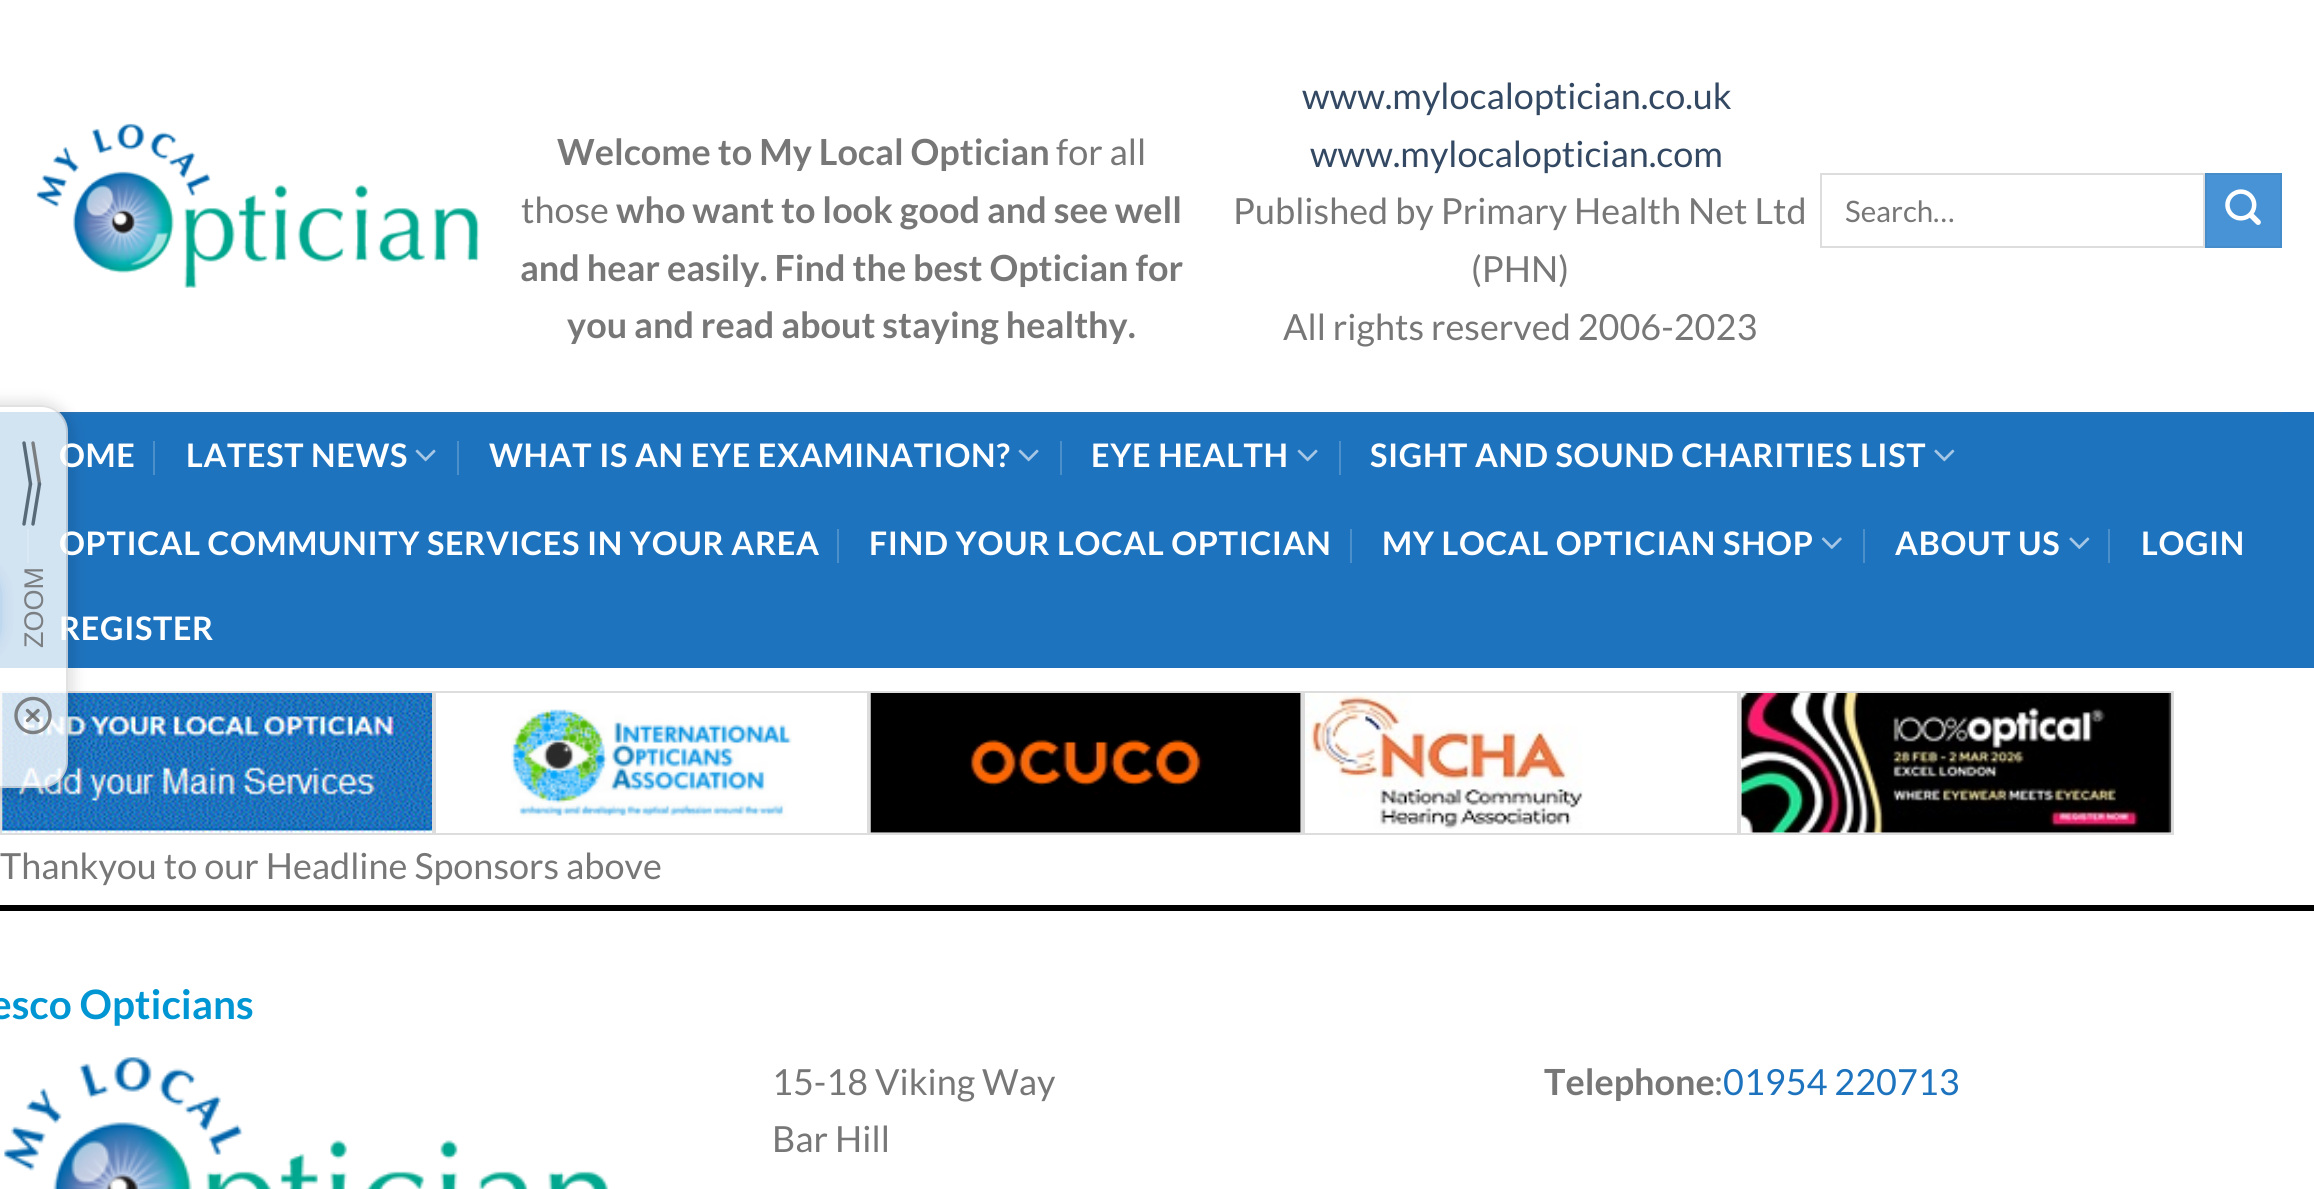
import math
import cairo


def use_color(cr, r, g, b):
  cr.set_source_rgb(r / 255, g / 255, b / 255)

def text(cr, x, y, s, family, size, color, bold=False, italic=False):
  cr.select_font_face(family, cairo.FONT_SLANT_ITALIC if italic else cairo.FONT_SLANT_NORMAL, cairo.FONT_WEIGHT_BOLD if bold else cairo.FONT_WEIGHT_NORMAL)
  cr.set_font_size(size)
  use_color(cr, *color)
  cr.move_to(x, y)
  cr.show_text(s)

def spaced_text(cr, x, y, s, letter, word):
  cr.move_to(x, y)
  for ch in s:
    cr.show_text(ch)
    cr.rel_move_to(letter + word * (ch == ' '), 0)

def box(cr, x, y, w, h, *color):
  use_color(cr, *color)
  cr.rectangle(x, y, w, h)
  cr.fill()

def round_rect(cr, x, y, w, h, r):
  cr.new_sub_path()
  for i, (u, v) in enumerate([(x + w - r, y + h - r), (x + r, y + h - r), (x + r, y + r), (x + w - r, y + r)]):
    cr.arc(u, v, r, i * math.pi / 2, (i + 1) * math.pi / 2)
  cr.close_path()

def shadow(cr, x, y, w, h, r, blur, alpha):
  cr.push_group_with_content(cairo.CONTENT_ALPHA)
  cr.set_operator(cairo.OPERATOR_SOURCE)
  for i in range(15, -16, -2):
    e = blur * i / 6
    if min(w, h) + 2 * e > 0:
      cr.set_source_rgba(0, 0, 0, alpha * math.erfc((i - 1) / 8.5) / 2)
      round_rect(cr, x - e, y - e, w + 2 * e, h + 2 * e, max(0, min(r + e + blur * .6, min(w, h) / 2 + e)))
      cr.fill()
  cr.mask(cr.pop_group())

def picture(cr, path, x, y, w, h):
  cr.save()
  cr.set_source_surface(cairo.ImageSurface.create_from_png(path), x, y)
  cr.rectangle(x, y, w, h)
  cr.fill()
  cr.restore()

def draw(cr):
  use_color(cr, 255, 255, 255)
  cr.paint()
  picture(cr, "img_01.png", 36, 123, 444, 165)
  cr.rectangle(1821, 174, 383, 73)
  use_color(cr, 221, 221, 221)
  cr.stroke()
  use_color(cr, 72, 147, 213)
  cr.rectangle(2206, 174, 75, 73)
  cr.fill_preserve()
  use_color(cr, 68, 140, 202)
  cr.stroke()
  picture(cr, "img_02.png", 2225, 189, 36, 36)
  box(cr, 0, 412, 2314, 256, 30, 115, 190)
  box(cr, 34, 412, 2248, 2, 39, 115, 183)
  box(cr, 153, 441, 2, 34, 75, 143, 203)
  picture(cr, "img_03.png", 415, 449, 21, 13)
  box(cr, 457, 441, 2, 34, 75, 143, 203)
  picture(cr, "img_03.png", 1018, 449, 21, 13)
  box(cr, 1060, 441, 2, 34, 75, 143, 203)
  picture(cr, "img_03.png", 1297, 449, 21, 13)
  box(cr, 1339, 441, 2, 34, 75, 143, 203)
  picture(cr, "img_04.png", 1934, 449, 21, 13)
  box(cr, 27, 529, 2, 34, 75, 143, 203)
  box(cr, 837, 529, 2, 34, 75, 143, 203)
  box(cr, 1350, 529, 2, 34, 75, 143, 203)
  picture(cr, "img_05.png", 1821, 537, 21, 12)
  box(cr, 1863, 529, 2, 34, 75, 143, 203)
  picture(cr, "img_06.png", 2069, 537, 21, 12)
  box(cr, 2108, 529, 2, 34, 75, 143, 203)
  box(cr, 27, 612, 2, 34, 75, 143, 203)
  box(cr, 0, 905, 2314, 6, 0, 0, 0)
  cr.rectangle(1, 692, 432, 142)
  use_color(cr, 221, 221, 221)
  cr.stroke()
  picture(cr, "img_07.png", 2, 693, 430, 140)
  cr.rectangle(435, 692, 433, 142)
  cr.stroke()
  picture(cr, "img_08.png", 511, 709, 281, 110)
  cr.rectangle(870, 692, 432, 142)
  cr.stroke()
  picture(cr, "img_09.png", 870, 693, 431, 140)
  cr.rectangle(1304, 692, 434, 142)
  cr.stroke()
  picture(cr, "img_10.png", 1305, 693, 278, 136)
  cr.rectangle(1740, 692, 433, 142)
  cr.stroke()
  picture(cr, "img_11.png", 1741, 693, 431, 140)
  picture(cr, "img_12.png", 4, 1057, 605, 132)
  cr.save()
  cr.set_fill_rule(cairo.FILL_RULE_EVEN_ODD)
  cr.new_path()
  cr.move_to(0, 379)
  cr.line_to(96, 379)
  cr.line_to(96, 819)
  cr.line_to(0, 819)
  cr.close_path()
  cr.move_to(-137, 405)
  cr.line_to(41, 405)
  cr.curve_to(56, 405, 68, 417, 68, 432)
  cr.line_to(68, 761)
  cr.curve_to(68, 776, 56, 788, 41, 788)
  cr.line_to(-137, 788)
  cr.curve_to(-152, 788, -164, 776, -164, 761)
  cr.line_to(-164, 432)
  cr.curve_to(-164, 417, -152, 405, -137, 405)
  cr.close_path()
  cr.clip()
  use_color(cr, 0, 0, 0)
  shadow(cr, -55, 401, 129, 396, 34, 7, 0.12)
  cr.restore()
  text(cr, 557, 165, "Welcome to My Local Optician", "Lato", 36, (119, 119, 119), bold=True)
  text(cr, 1056, 165, "for all", "Lato", 36, (119, 119, 119))
  text(cr, 521, 223, "those", "Lato", 36, (119, 119, 119))
  text(cr, 616, 223, "who want to look good and see well", "Lato", 36, (119, 119, 119), bold=True)
  text(cr, 520, 281, "and hear easily. Find the best Optician for", "Lato", 36, (119, 119, 119), bold=True)
  text(cr, 567, 338, "you and read about staying healthy.", "Lato", 36, (119, 119, 119), bold=True)
  text(cr, 1302, 109, "www.mylocaloptician.co.uk", "Lato", 36, (51, 72, 98))
  text(cr, 1310, 167, "www.mylocaloptician.com", "Lato", 36, (51, 72, 98))
  text(cr, 1233, 224, "Published by Primary Health Net Ltd", "Lato", 36, (119, 119, 119))
  text(cr, 1471, 282, "(PHN)", "Lato", 36, (119, 119, 119))
  text(cr, 1283, 340, "All rights reserved 2006-2023", "Lato", 36, (119, 119, 119))
  text(cr, 1845, 222, "Search…", "Lato", 29.5, (119, 119, 119))
  cr.select_font_face("Lato", cairo.FONT_SLANT_NORMAL, cairo.FONT_WEIGHT_BOLD)
  cr.set_font_size(32.4)
  use_color(cr, 255, 255, 255)
  spaced_text(cr, 59, 467, "OME", 0.65, 0)
  spaced_text(cr, 186, 467, "LATEST NEWS", 0.65, 0)
  spaced_text(cr, 489, 467, "WHAT IS AN EYE EXAMINATION?", 0.65, 0)
  spaced_text(cr, 1091, 467, "EYE HEALTH", 0.65, 0)
  spaced_text(cr, 1370, 467, "SIGHT AND SOUND CHARITIES LIST", 0.65, 0)
  spaced_text(cr, 59, 555, "OPTICAL COMMUNITY SERVICES IN YOUR AREA", 0.65, 0)
  spaced_text(cr, 869, 555, "FIND YOUR LOCAL OPTICIAN", 0.65, 0)
  spaced_text(cr, 1382, 555, "MY LOCAL OPTICIAN SHOP", 0.65, 0)
  spaced_text(cr, 1895, 555, "ABOUT US", 0.65, 0)
  spaced_text(cr, 2141, 555, "LOGIN", 0.65, 0)
  spaced_text(cr, 59, 640, "REGISTER", 0.65, 0)
  text(cr, 0, 879, "Thankyou to our Headline Sponsors above", "Lato", 36, (119, 119, 119))
  text(cr, -10, 1019, "esco Opticians", "Lato", 40.5, (0, 149, 211), bold=True)
  text(cr, 772, 1095, "15-18 Viking Way", "Lato", 36, (119, 119, 119))
  text(cr, 772, 1152, "Bar Hill", "Lato", 36, (119, 119, 119))
  text(cr, 1544, 1095, "Telephone", "Lato", 36, (119, 119, 119), bold=True)
  text(cr, 1714, 1095, ":", "Lato", 36, (119, 119, 119))
  text(cr, 1723, 1095, "01954 220713", "Lato", 36, (30, 115, 190))
  cr.set_source_rgba(1, 1, 1, 0.8)
  round_rect(cr, -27, 405, 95, 383, 27)
  cr.fill()
  round_rect(cr, -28, 406, 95, 381, 26)
  cr.set_source_rgba(0, 0, 0, 0.12)
  cr.stroke()
  use_color(cr, 30, 115, 190)
  shadow(cr, -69, 565, 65, 90, 45, 8, 0.39)
  cr.new_path()
  cr.move_to(33, 443)
  cr.line_to(39.5, 484)
  cr.set_source_rgba(0.4, 0.4, 0.4, 0.8)
  cr.set_line_width(3.4)
  cr.set_line_cap(cairo.LINE_CAP_ROUND)
  cr.stroke()
  cr.new_path()
  cr.move_to(39.5, 484)
  cr.line_to(33, 524)
  use_color(cr, 88, 105, 120)
  cr.stroke()
  cr.new_path()
  cr.move_to(30.5, 484)
  cr.line_to(24, 443)
  cr.stroke()
  cr.new_path()
  cr.move_to(24, 524)
  cr.line_to(30.5, 484)
  cr.stroke()
  cr.save()
  cr.translate(43, 648)
  cr.rotate(-90 * math.pi / 180)
  text(cr, 0, 0, "ZOOM", "Liberation Sans", 27, (124, 127, 130))
  cr.restore()
  cr.new_path()
  cr.arc(33, 715.5, 17, 0, 2 * math.pi)
  cr.set_source_rgba(0.4, 0.4, 0.4, 0.8)
  cr.set_line_cap(cairo.LINE_CAP_BUTT)
  cr.stroke()
  cr.new_path()
  cr.move_to(38, 710.5)
  cr.line_to(27.5, 720.5)
  cr.set_line_cap(cairo.LINE_CAP_ROUND)
  cr.set_line_join(cairo.LINE_JOIN_ROUND)
  cr.stroke()
  cr.new_path()
  cr.move_to(27.5, 710.5)
  cr.line_to(38, 720.5)
  cr.stroke()


surface = cairo.ImageSurface(cairo.FORMAT_RGB24, 2314, 1189)
cr = cairo.Context(surface)
options = cairo.FontOptions()
options.set_hint_metrics(cairo.HINT_METRICS_OFF)
options.set_hint_style(cairo.HINT_STYLE_NONE)
cr.set_font_options(options)
cr.set_miter_limit(4)
draw(cr)
surface.write_to_png("out.png")
